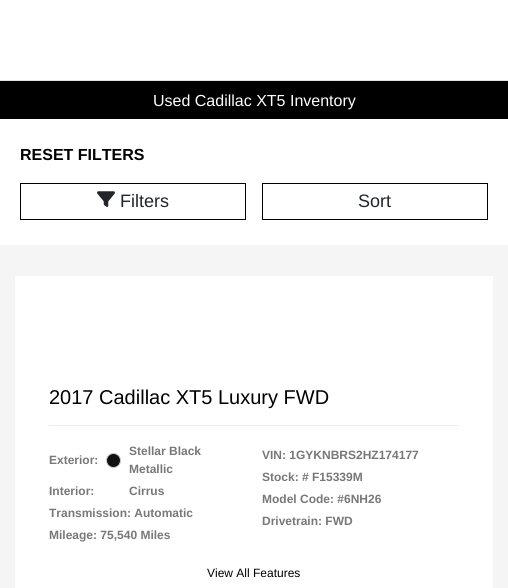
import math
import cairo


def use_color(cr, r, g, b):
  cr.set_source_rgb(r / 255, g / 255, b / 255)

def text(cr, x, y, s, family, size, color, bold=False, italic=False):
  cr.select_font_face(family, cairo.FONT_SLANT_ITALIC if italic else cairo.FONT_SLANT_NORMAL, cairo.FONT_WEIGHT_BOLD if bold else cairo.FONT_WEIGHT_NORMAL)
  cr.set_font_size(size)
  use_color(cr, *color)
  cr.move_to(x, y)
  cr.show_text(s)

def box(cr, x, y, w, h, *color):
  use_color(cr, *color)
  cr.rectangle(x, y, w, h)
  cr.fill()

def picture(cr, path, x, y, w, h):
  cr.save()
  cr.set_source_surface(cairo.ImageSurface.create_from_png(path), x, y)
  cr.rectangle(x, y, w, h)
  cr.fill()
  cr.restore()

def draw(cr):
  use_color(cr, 255, 255, 255)
  cr.paint()
  box(cr, 0, 245, 508, 343, 245, 245, 245)
  box(cr, 0, 81, 508, 38, 0, 0, 0)
  box(cr, 0, 80, 508, 1, 222, 226, 230)
  cr.rectangle(20.5, 183.5, 225, 36)
  use_color(cr, 0, 0, 0)
  cr.set_line_width(1)
  cr.stroke()
  picture(cr, "img_01.png", 97, 191, 18, 16)
  cr.rectangle(262.5, 183.5, 225, 36)
  cr.stroke()
  box(cr, 15, 276, 478, 312, 255, 255, 255)
  box(cr, 49, 425, 410, 1, 237, 237, 237)
  use_color(cr, 17, 15, 15)
  cr.arc(113.5, 460.5, 7, 0, 2 * math.pi)
  cr.fill_preserve()
  use_color(cr, 204, 204, 204)
  cr.stroke()
  text(cr, 153, 106, "Used Cadillac XT5 Inventory", "Liberation Sans", 16, (255, 255, 255))
  text(cr, 20, 160, "RESET FILTERS", "Liberation Sans", 16, (0, 0, 0), bold=True)
  text(cr, 120, 207, "Filters", "Liberation Sans", 18, (33, 37, 41))
  text(cr, 358, 207, "Sort", "Liberation Sans", 18, (33, 37, 41))
  text(cr, 49, 404, "2017 Cadillac XT5 Luxury FWD", "Liberation Sans", 20, (0, 0, 0))
  text(cr, 49, 464, "Exterior:", "Liberation Sans", 12, (121, 120, 120), bold=True)
  text(cr, 129, 455, "Stellar Black", "Liberation Sans", 12, (121, 120, 120), bold=True)
  text(cr, 129, 473, "Metallic", "Liberation Sans", 12, (121, 120, 120), bold=True)
  text(cr, 49, 495, "Interior:", "Liberation Sans", 12, (121, 120, 120), bold=True)
  text(cr, 129, 495, "Cirrus", "Liberation Sans", 12, (121, 120, 120), bold=True)
  text(cr, 49, 517, "Transmission: Automatic", "Liberation Sans", 12, (121, 120, 120), bold=True)
  text(cr, 49, 539, "Mileage: 75,540 Miles", "Liberation Sans", 12, (121, 120, 120), bold=True)
  text(cr, 262, 459, "VIN: 1GYKNBRS2HZ174177", "Liberation Sans", 12, (121, 120, 120), bold=True)
  text(cr, 262, 481, "Stock: # F15339M", "Liberation Sans", 12, (121, 120, 120), bold=True)
  text(cr, 262, 503, "Model Code: #6NH26", "Liberation Sans", 12, (121, 120, 120), bold=True)
  text(cr, 262, 525, "Drivetrain: FWD", "Liberation Sans", 12, (121, 120, 120), bold=True)
  text(cr, 207, 577, "View All Features", "Liberation Sans", 12, (0, 0, 0))


surface = cairo.ImageSurface(cairo.FORMAT_RGB24, 508, 588)
cr = cairo.Context(surface)
options = cairo.FontOptions()
options.set_hint_metrics(cairo.HINT_METRICS_OFF)
options.set_hint_style(cairo.HINT_STYLE_NONE)
cr.set_font_options(options)
cr.set_miter_limit(4)
draw(cr)
surface.write_to_png("out.png")
